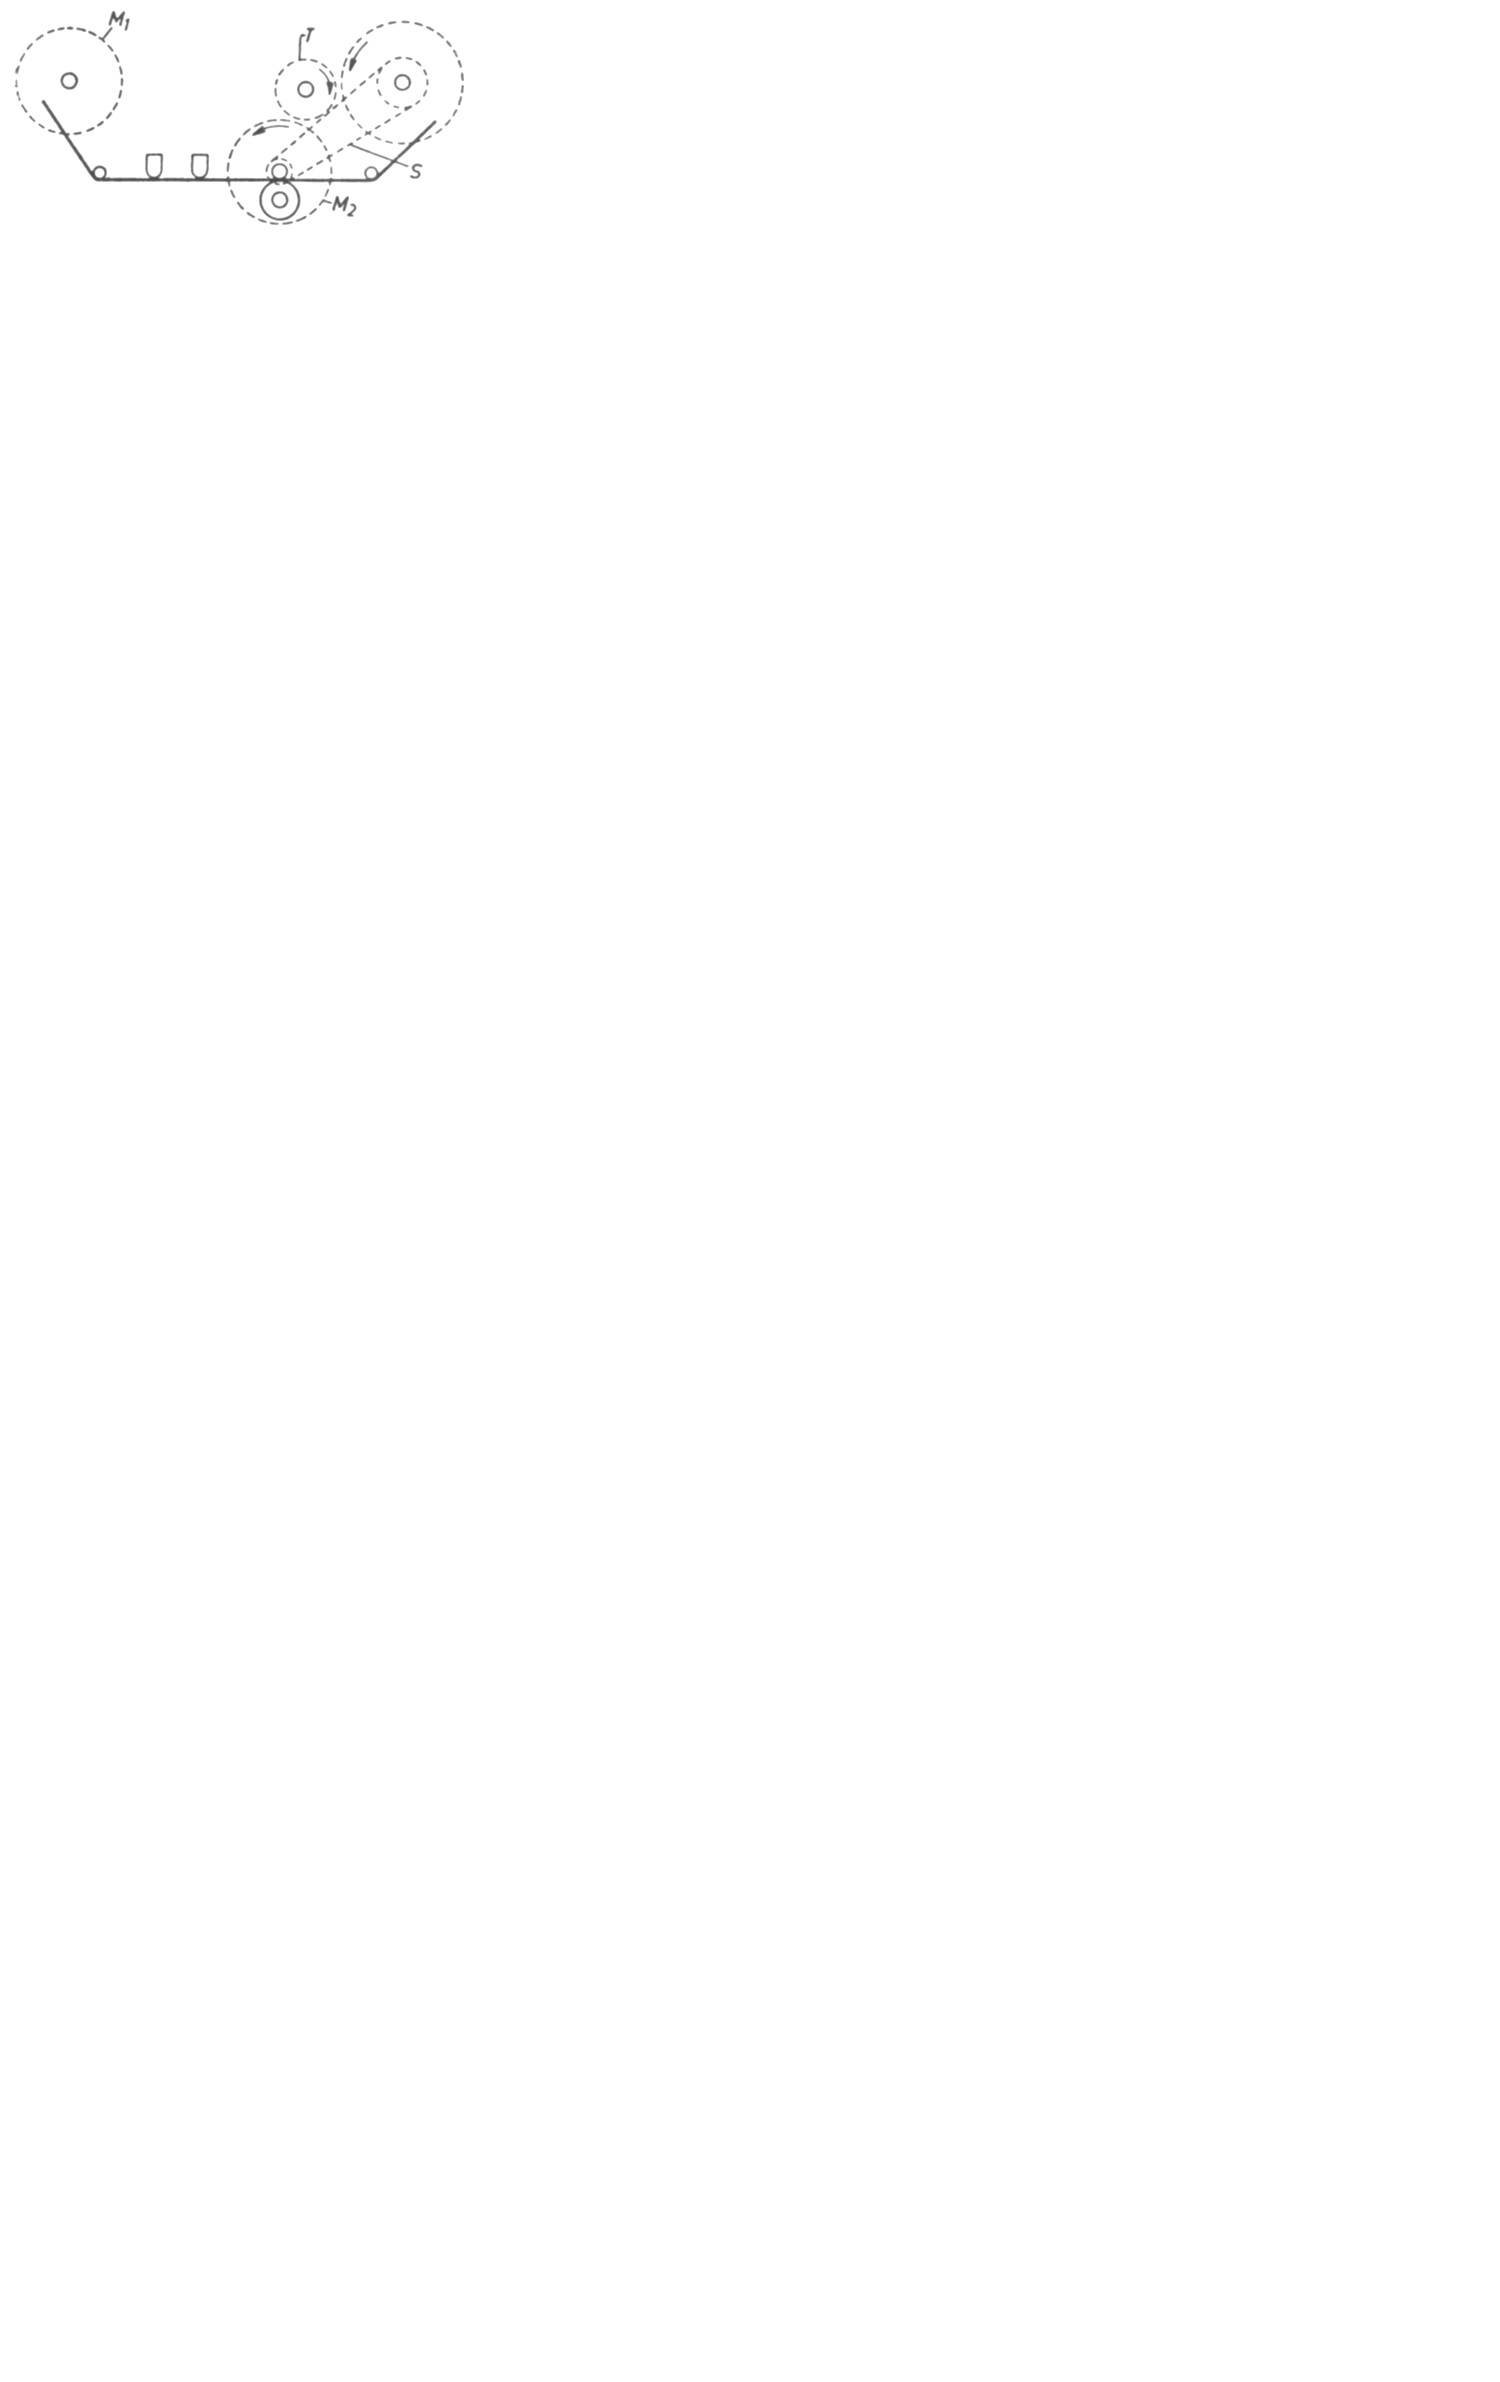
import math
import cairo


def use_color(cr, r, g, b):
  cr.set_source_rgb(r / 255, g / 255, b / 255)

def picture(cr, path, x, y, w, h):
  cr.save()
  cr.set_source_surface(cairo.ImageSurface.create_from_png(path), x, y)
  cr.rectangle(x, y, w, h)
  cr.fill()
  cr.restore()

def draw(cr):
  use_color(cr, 255, 255, 255)
  cr.paint()
  picture(cr, "img_01.png", 9, 8, 455, 223)


surface = cairo.ImageSurface(cairo.FORMAT_RGB24, 1500, 2382)
cr = cairo.Context(surface)
options = cairo.FontOptions()
options.set_hint_metrics(cairo.HINT_METRICS_OFF)
options.set_hint_style(cairo.HINT_STYLE_NONE)
cr.set_font_options(options)
cr.set_miter_limit(4)
draw(cr)
surface.write_to_png("out.png")
